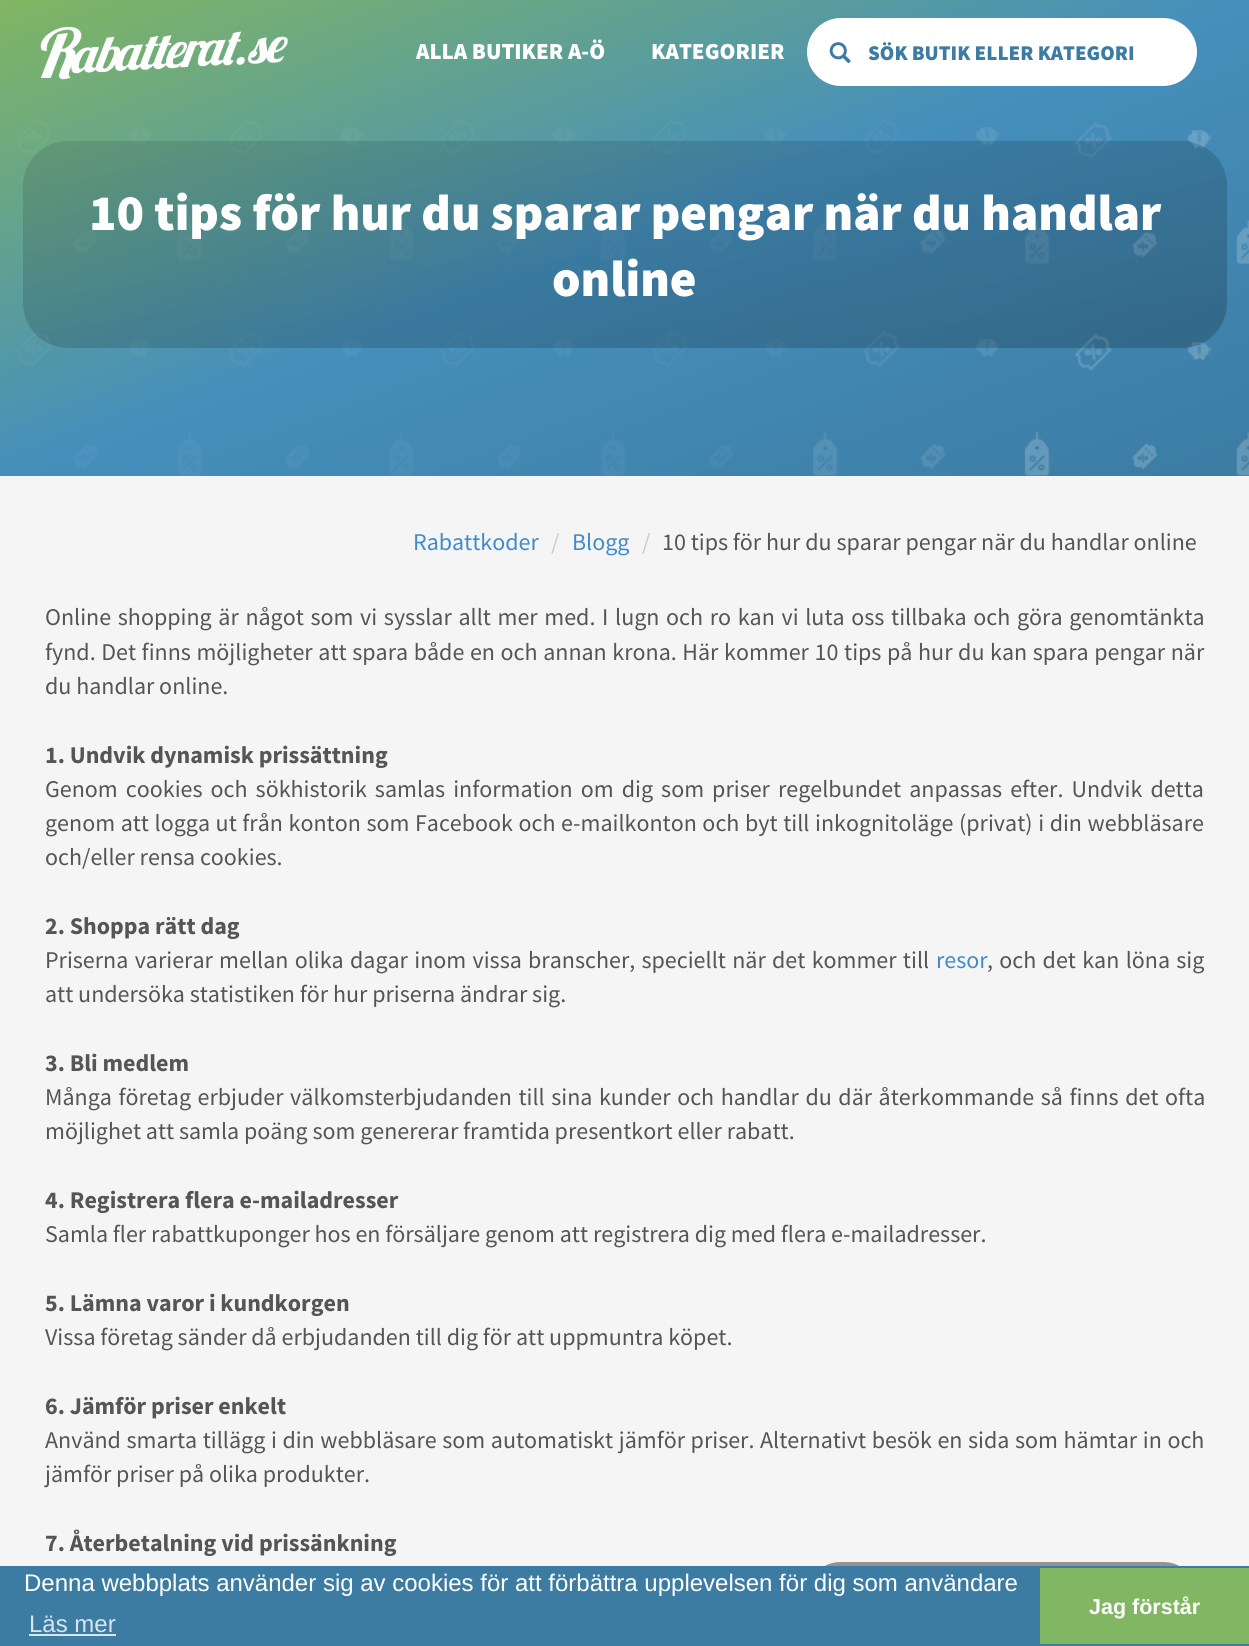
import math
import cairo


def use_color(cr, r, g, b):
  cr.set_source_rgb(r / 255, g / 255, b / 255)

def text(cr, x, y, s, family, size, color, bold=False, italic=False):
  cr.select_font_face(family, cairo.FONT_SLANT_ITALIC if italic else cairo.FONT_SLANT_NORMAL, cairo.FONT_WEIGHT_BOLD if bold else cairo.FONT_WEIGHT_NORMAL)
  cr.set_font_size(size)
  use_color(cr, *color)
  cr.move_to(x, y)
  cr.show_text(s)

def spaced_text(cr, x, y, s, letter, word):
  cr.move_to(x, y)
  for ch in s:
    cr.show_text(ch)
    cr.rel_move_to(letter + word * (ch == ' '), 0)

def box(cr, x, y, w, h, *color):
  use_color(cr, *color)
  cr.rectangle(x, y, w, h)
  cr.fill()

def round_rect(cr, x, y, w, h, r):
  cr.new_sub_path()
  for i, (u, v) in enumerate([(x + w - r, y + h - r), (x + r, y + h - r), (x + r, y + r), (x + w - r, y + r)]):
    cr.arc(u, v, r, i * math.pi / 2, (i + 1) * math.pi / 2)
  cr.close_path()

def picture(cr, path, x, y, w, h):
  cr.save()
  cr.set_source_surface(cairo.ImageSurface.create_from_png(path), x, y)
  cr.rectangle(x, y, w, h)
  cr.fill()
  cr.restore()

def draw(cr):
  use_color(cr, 255, 255, 255)
  cr.paint()
  gradient = cairo.LinearGradient(467, -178, 783, 653)
  gradient.add_color_stop_rgba(0, 0.506, 0.714, 0.384, 1)
  gradient.add_color_stop_rgba(0.5, 0.271, 0.561, 0.737, 1)
  gradient.add_color_stop_rgba(1, 0.235, 0.486, 0.639, 1)
  cr.set_source(gradient)
  cr.rectangle(0, 0, 1249, 476)
  cr.fill()
  picture(cr, "img_01.png", 40, 27, 248, 53)
  use_color(cr, 255, 255, 255)
  round_rect(cr, 807, 18, 390, 68, 34)
  cr.fill()
  picture(cr, "img_02.png", 829, 42, 22, 22)
  picture(cr, "img_03.png", 17, 119, 1232, 357)
  gradient = cairo.LinearGradient(590, 43, 659, 446)
  gradient.add_color_stop_rgba(0, 0, 0, 0, 0.1)
  gradient.add_color_stop_rgba(1, 0, 0, 0, 0.2)
  cr.set_source(gradient)
  round_rect(cr, 23, 141, 1204, 207, 45)
  cr.fill()
  box(cr, 0, 476, 1249, 1090, 245, 245, 245)
  cr.set_source_rgba(0, 0, 0, 0.4)
  round_rect(cr, 807, 1562, 390, 67, 33.5)
  cr.fill()
  box(cr, 0, 1566, 1249, 80, 60, 124, 163)
  box(cr, 29, 1634, 87, 2, 216, 229, 237)
  box(cr, 1040, 1568, 209, 76, 129, 182, 98)
  text(cr, 416, 59, "ALLA BUTIKER A-Ö", "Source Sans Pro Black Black", 23, (255, 255, 255))
  text(cr, 651, 59, "KATEGORIER", "Source Sans Pro Black Black", 23, (255, 255, 255))
  text(cr, 868, 60, "SÖK BUTIK ELLER KATEGORI", "Source Sans Pro Black Black", 21, (60, 124, 163))
  text(cr, 89, 230, "10 tips för hur du sparar pengar när du handlar", "Source Sans Pro Black Black", 51, (255, 255, 255))
  text(cr, 552, 296, "online", "Source Sans Pro Black Black", 51, (255, 255, 255))
  text(cr, 413, 550, "Rabattkoder", "Source Sans Pro", 24, (66, 139, 202))
  text(cr, 551, 550, "/", "Source Sans Pro", 24, (204, 204, 204))
  text(cr, 572, 550, "Blogg", "Source Sans Pro", 24, (66, 139, 202))
  text(cr, 642, 550, "/", "Source Sans Pro", 24, (204, 204, 204))
  text(cr, 662, 550, "10 tips för hur du sparar pengar när du handlar online", "Source Sans Pro", 24, (85, 85, 85))
  spaced_text(cr, 45, 625, "Online shopping är något som vi sysslar allt mer med. I lugn och ro kan vi luta oss tillbaka och göra genomtänkta", 0, 1.85)
  spaced_text(cr, 45, 660, "fynd. Det finns möjligheter att spara både en och annan krona. Här kommer 10 tips på hur du kan spara pengar när", 0, 0.8)
  text(cr, 45, 694, "du handlar online.", "Source Sans Pro", 24, (85, 85, 85))
  text(cr, 45, 763, "1. Undvik dynamisk prissättning", "Source Sans Pro", 24, (85, 85, 85), bold=True)
  cr.select_font_face("Source Sans Pro")
  spaced_text(cr, 45, 797, "Genom cookies och sökhistorik samlas information om dig som priser regelbundet anpassas efter. Undvik detta", 0, 3.25)
  spaced_text(cr, 45, 831, "genom att logga ut från konton som Facebook och e-mailkonton och byt till inkognitoläge (privat) i din webbläsare", 0, 0.8)
  text(cr, 45, 865, "och/eller rensa cookies.", "Source Sans Pro", 24, (85, 85, 85))
  text(cr, 45, 934, "2. Shoppa rätt dag", "Source Sans Pro", 24, (85, 85, 85), bold=True)
  cr.select_font_face("Source Sans Pro")
  spaced_text(cr, 45, 968, "Priserna varierar mellan olika dagar inom vissa branscher, speciellt när det kommer till", 0, 1.5)
  text(cr, 936, 968, "resor", "Source Sans Pro", 24, (66, 139, 202))
  use_color(cr, 85, 85, 85)
  spaced_text(cr, 987, 968, ", och det kan löna sig", 0, 1.5)
  text(cr, 45, 1002, "att undersöka statistiken för hur priserna ändrar sig.", "Source Sans Pro", 24, (85, 85, 85))
  text(cr, 45, 1071, "3. Bli medlem", "Source Sans Pro", 24, (85, 85, 85), bold=True)
  cr.select_font_face("Source Sans Pro")
  spaced_text(cr, 45, 1105, "Många företag erbjuder välkomsterbjudanden till sina kunder och handlar du där återkommande så finns det ofta", 0, 1.75)
  text(cr, 45, 1139, "möjlighet att samla poäng som genererar framtida presentkort eller rabatt.", "Source Sans Pro", 24, (85, 85, 85))
  text(cr, 45, 1208, "4. Registrera flera e-mailadresser", "Source Sans Pro", 24, (85, 85, 85), bold=True)
  text(cr, 45, 1242, "Samla fler rabattkuponger hos en försäljare genom att registrera dig med flera e-mailadresser.", "Source Sans Pro", 24, (85, 85, 85))
  text(cr, 45, 1311, "5. Lämna varor i kundkorgen", "Source Sans Pro", 24, (85, 85, 85), bold=True)
  text(cr, 45, 1345, "Vissa företag sänder då erbjudanden till dig för att uppmuntra köpet.", "Source Sans Pro", 24, (85, 85, 85))
  text(cr, 45, 1414, "6. Jämför priser enkelt", "Source Sans Pro", 24, (85, 85, 85), bold=True)
  cr.select_font_face("Source Sans Pro")
  spaced_text(cr, 45, 1448, "Använd smarta tillägg i din webbläsare som automatiskt jämför priser. Alternativt besök en sida som hämtar in och", 0, 0.8)
  text(cr, 45, 1482, "jämför priser på olika produkter.", "Source Sans Pro", 24, (85, 85, 85))
  text(cr, 45, 1551, "7. Återbetalning vid prissänkning", "Source Sans Pro", 24, (85, 85, 85), bold=True)
  text(cr, 24, 1591, "Denna webbplats använder sig av cookies för att förbättra upplevelsen för dig som användare", "Liberation Sans", 24, (255, 255, 255))
  text(cr, 29, 1632, "Läs mer", "Liberation Sans", 24, (216, 229, 237))
  text(cr, 1089, 1614, "Jag förstår", "Liberation Sans", 21.5, (255, 255, 255), bold=True)


surface = cairo.ImageSurface(cairo.FORMAT_RGB24, 1249, 1646)
cr = cairo.Context(surface)
options = cairo.FontOptions()
options.set_hint_metrics(cairo.HINT_METRICS_OFF)
options.set_hint_style(cairo.HINT_STYLE_NONE)
cr.set_font_options(options)
cr.set_miter_limit(4)
draw(cr)
surface.write_to_png("out.png")
